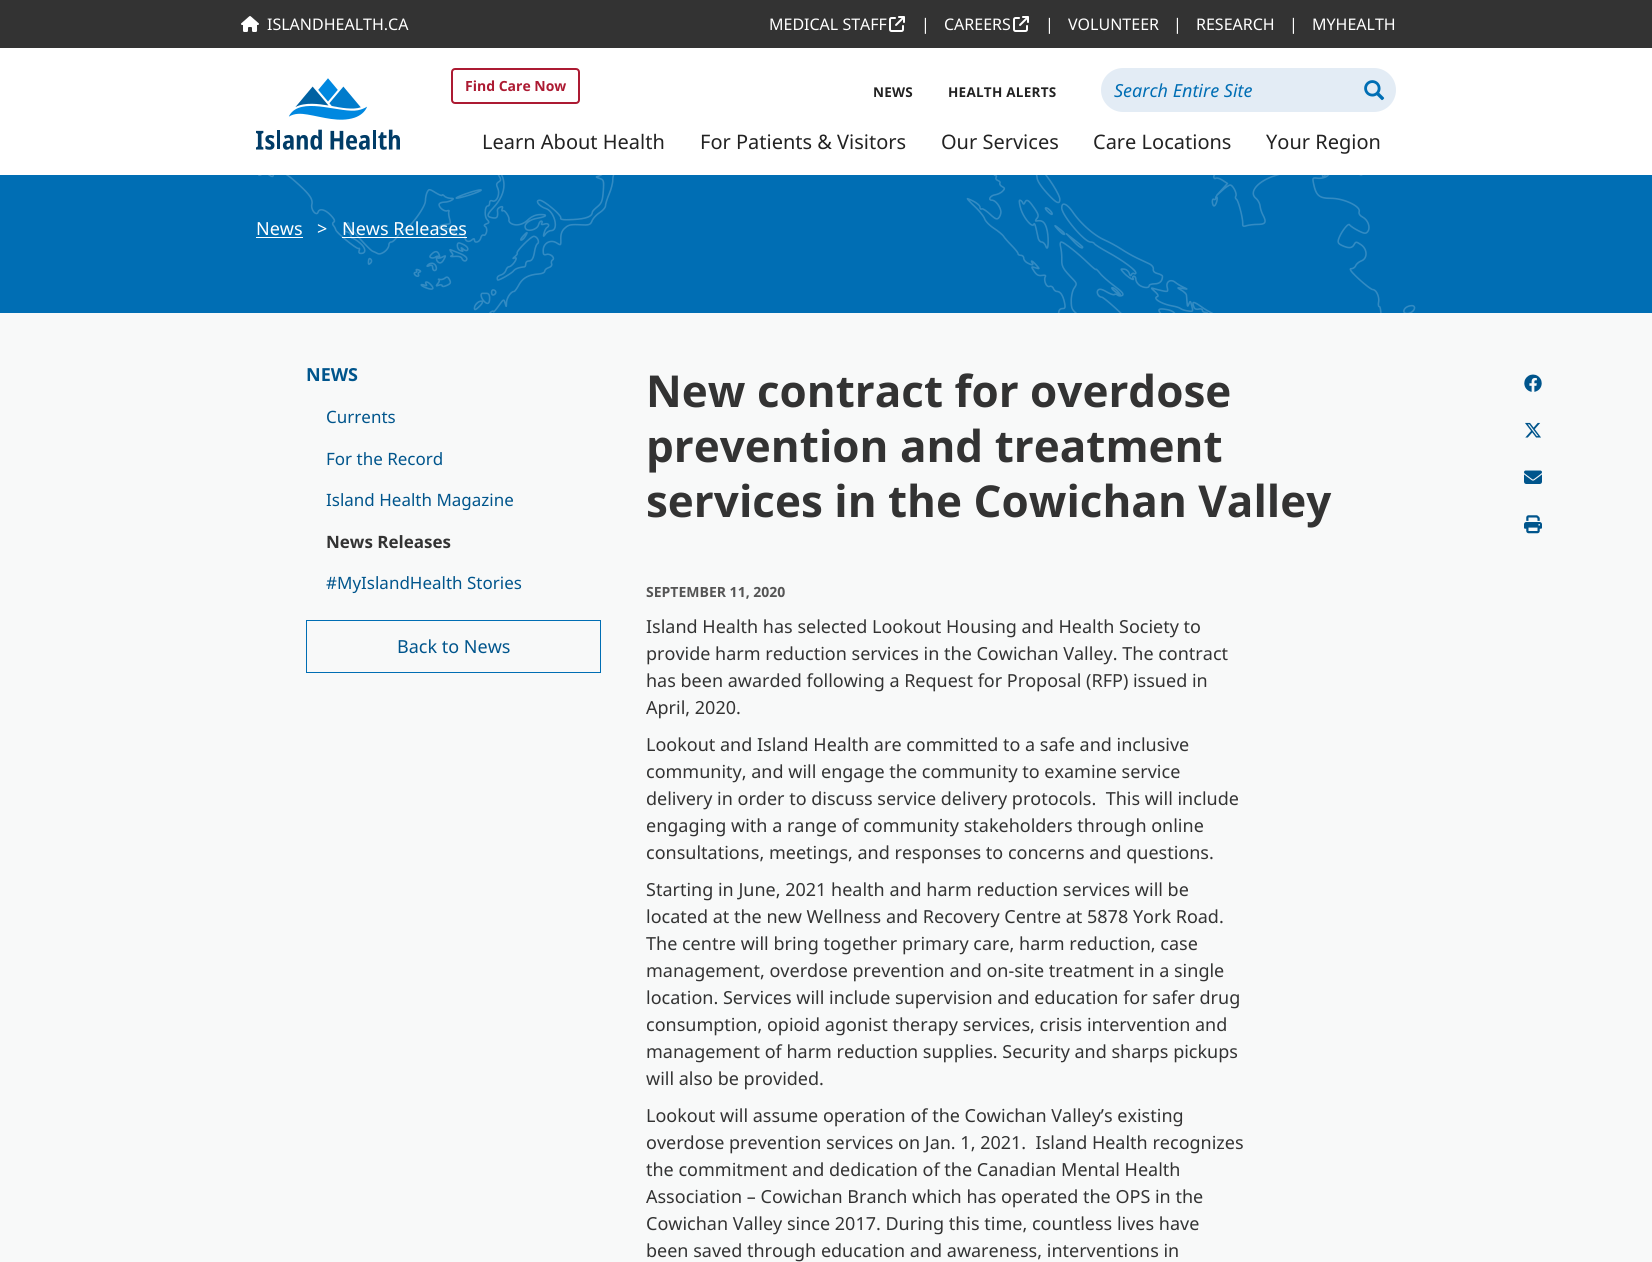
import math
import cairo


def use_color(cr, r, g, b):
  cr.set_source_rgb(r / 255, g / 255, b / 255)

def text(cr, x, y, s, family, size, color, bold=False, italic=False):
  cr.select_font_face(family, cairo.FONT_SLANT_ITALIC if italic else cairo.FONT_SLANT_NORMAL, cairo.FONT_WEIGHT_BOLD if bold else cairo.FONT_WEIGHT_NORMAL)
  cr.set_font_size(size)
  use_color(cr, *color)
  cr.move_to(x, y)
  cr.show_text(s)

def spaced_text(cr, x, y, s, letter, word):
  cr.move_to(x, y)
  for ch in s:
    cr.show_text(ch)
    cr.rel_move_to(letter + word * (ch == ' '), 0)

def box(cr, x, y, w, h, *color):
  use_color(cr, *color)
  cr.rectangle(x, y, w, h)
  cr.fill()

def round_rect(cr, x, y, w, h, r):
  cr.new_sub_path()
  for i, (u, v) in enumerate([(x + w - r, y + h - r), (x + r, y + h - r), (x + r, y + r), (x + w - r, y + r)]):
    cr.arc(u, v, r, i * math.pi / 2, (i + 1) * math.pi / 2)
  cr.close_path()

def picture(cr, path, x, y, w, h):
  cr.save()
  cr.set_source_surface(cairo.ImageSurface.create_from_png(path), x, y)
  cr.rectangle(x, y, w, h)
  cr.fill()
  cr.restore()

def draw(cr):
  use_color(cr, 248, 249, 249)
  cr.paint()
  box(cr, 0, 0, 1652, 48, 51, 51, 51)
  picture(cr, "img_01.png", 241, 16, 18, 16)
  picture(cr, "img_02.png", 889, 16, 16, 16)
  picture(cr, "img_02.png", 1013, 16, 16, 16)
  box(cr, 0, 48, 1652, 127, 255, 255, 255)
  picture(cr, "img_03.png", 256, 78, 144, 72)
  round_rect(cr, 452, 69, 127, 34, 3)
  use_color(cr, 172, 26, 50)
  cr.stroke()
  use_color(cr, 227, 236, 245)
  round_rect(cr, 1101, 68, 295, 44, 22)
  cr.fill()
  picture(cr, "img_04.png", 1364, 80, 21, 21)
  box(cr, 0, 175, 1652, 138, 0, 110, 180)
  picture(cr, "img_05.png", 258, 175, 1158, 138)
  box(cr, 256, 237, 47, 1, 255, 255, 255)
  box(cr, 342, 237, 125, 1, 255, 255, 255)
  cr.rectangle(306.5, 620.5, 294, 52)
  use_color(cr, 0, 110, 180)
  cr.set_line_width(1)
  cr.stroke()
  picture(cr, "img_06.png", 1524, 374, 18, 18)
  picture(cr, "img_07.png", 1525, 422, 16, 16)
  picture(cr, "img_08.png", 1524, 470, 18, 14)
  picture(cr, "img_09.png", 1524, 515, 18, 19)
  text(cr, 267, 30, "ISLANDHEALTH.CA", "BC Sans", 16, (255, 255, 255))
  text(cr, 769, 30, "MEDICAL STAFF", "BC Sans", 16, (255, 255, 255))
  text(cr, 921, 30, "|", "BC Sans", 16, (255, 255, 255))
  text(cr, 944, 30, "CAREERS", "BC Sans", 16, (255, 255, 255))
  text(cr, 1045, 30, "|", "BC Sans", 16, (255, 255, 255))
  text(cr, 1068, 30, "VOLUNTEER", "BC Sans", 16, (255, 255, 255))
  text(cr, 1173, 30, "|", "BC Sans", 16, (255, 255, 255))
  text(cr, 1196, 30, "RESEARCH", "BC Sans", 16, (255, 255, 255))
  text(cr, 1289, 30, "|", "BC Sans", 16, (255, 255, 255))
  text(cr, 1312, 30, "MYHEALTH", "BC Sans", 16, (255, 255, 255))
  text(cr, 465, 91, "Find Care Now", "BC Sans", 14, (172, 26, 50), bold=True)
  cr.set_font_size(13.5)
  use_color(cr, 34, 34, 34)
  spaced_text(cr, 873, 97, "NEWS", 0.25, 0)
  spaced_text(cr, 948, 97, "HEALTH ALERTS", 0.25, 0)
  text(cr, 1114, 97, "Search Entire Site", "BC Sans", 18, (0, 110, 180), italic=True)
  text(cr, 482, 149, "Learn About Health", "BC Sans", 20, (34, 34, 34))
  text(cr, 700, 149, "For Patients & Visitors", "BC Sans", 20, (34, 34, 34))
  text(cr, 941, 149, "Our Services", "BC Sans", 20, (34, 34, 34))
  text(cr, 1093, 149, "Care Locations", "BC Sans", 20, (34, 34, 34))
  text(cr, 1266, 149, "Your Region", "BC Sans", 20, (34, 34, 34))
  text(cr, 256, 235, "News", "BC Sans", 18, (255, 255, 255))
  text(cr, 317, 235, ">", "BC Sans", 18, (255, 255, 255))
  text(cr, 342, 235, "News Releases", "BC Sans", 18, (255, 255, 255))
  text(cr, 306, 381, "NEWS", "BC Sans", 18, (0, 85, 140), bold=True)
  text(cr, 326, 423, "Currents", "BC Sans", 17, (0, 85, 140))
  text(cr, 326, 465, "For the Record", "BC Sans", 17, (0, 85, 140))
  text(cr, 326, 506, "Island Health Magazine", "BC Sans", 17, (0, 85, 140))
  text(cr, 326, 548, "News Releases", "BC Sans", 17, (51, 51, 51), bold=True)
  text(cr, 326, 589, "#MyIslandHealth Stories", "BC Sans", 17, (0, 85, 140))
  text(cr, 397, 653, "Back to News", "BC Sans", 18, (0, 85, 140))
  text(cr, 646, 407, "New contract for overdose", "BC Sans", 44, (51, 51, 51), bold=True)
  text(cr, 646, 462, "prevention and treatment", "BC Sans", 44, (51, 51, 51), bold=True)
  text(cr, 646, 517, "services in the Cowichan Valley", "BC Sans", 44, (51, 51, 51), bold=True)
  text(cr, 646, 597, "SEPTEMBER 11, 2020", "BC Sans", 14, (85, 85, 85), bold=True)
  text(cr, 646, 633, "Island Health has selected Lookout Housing and Health Society to", "BC Sans", 18, (51, 51, 51))
  text(cr, 646, 660, "provide harm reduction services in the Cowichan Valley. The contract", "BC Sans", 18, (51, 51, 51))
  text(cr, 646, 687, "has been awarded following a Request for Proposal (RFP) issued in", "BC Sans", 18, (51, 51, 51))
  text(cr, 646, 714, "April, 2020.", "BC Sans", 18, (51, 51, 51))
  text(cr, 646, 751, "Lookout and Island Health are committed to a safe and inclusive", "BC Sans", 18, (51, 51, 51))
  text(cr, 646, 778, "community, and will engage the community to examine service", "BC Sans", 18, (51, 51, 51))
  text(cr, 646, 805, "delivery in order to discuss service delivery protocols.  This will include", "BC Sans", 18, (51, 51, 51))
  text(cr, 646, 832, "engaging with a range of community stakeholders through online", "BC Sans", 18, (51, 51, 51))
  text(cr, 646, 859, "consultations, meetings, and responses to concerns and questions.", "BC Sans", 18, (51, 51, 51))
  text(cr, 646, 896, "Starting in June, 2021 health and harm reduction services will be", "BC Sans", 18, (51, 51, 51))
  text(cr, 646, 923, "located at the new Wellness and Recovery Centre at 5878 York Road.", "BC Sans", 18, (51, 51, 51))
  text(cr, 646, 950, "The centre will bring together primary care, harm reduction, case", "BC Sans", 18, (51, 51, 51))
  text(cr, 646, 977, "management, overdose prevention and on-site treatment in a single", "BC Sans", 18, (51, 51, 51))
  text(cr, 646, 1004, "location. Services will include supervision and education for safer drug", "BC Sans", 18, (51, 51, 51))
  text(cr, 646, 1031, "consumption, opioid agonist therapy services, crisis intervention and", "BC Sans", 18, (51, 51, 51))
  text(cr, 646, 1058, "management of harm reduction supplies. Security and sharps pickups", "BC Sans", 18, (51, 51, 51))
  text(cr, 646, 1085, "will also be provided.", "BC Sans", 18, (51, 51, 51))
  text(cr, 646, 1122, "Lookout will assume operation of the Cowichan Valley’s existing", "BC Sans", 18, (51, 51, 51))
  text(cr, 646, 1149, "overdose prevention services on Jan. 1, 2021.  Island Health recognizes", "BC Sans", 18, (51, 51, 51))
  text(cr, 646, 1176, "the commitment and dedication of the Canadian Mental Health", "BC Sans", 18, (51, 51, 51))
  text(cr, 646, 1203, "Association – Cowichan Branch which has operated the OPS in the", "BC Sans", 18, (51, 51, 51))
  text(cr, 646, 1230, "Cowichan Valley since 2017. During this time, countless lives have", "BC Sans", 18, (51, 51, 51))
  text(cr, 646, 1257, "been saved through education and awareness, interventions in", "BC Sans", 18, (51, 51, 51))


surface = cairo.ImageSurface(cairo.FORMAT_RGB24, 1652, 1262)
cr = cairo.Context(surface)
options = cairo.FontOptions()
options.set_hint_metrics(cairo.HINT_METRICS_OFF)
options.set_hint_style(cairo.HINT_STYLE_NONE)
cr.set_font_options(options)
cr.set_miter_limit(4)
draw(cr)
surface.write_to_png("out.png")
